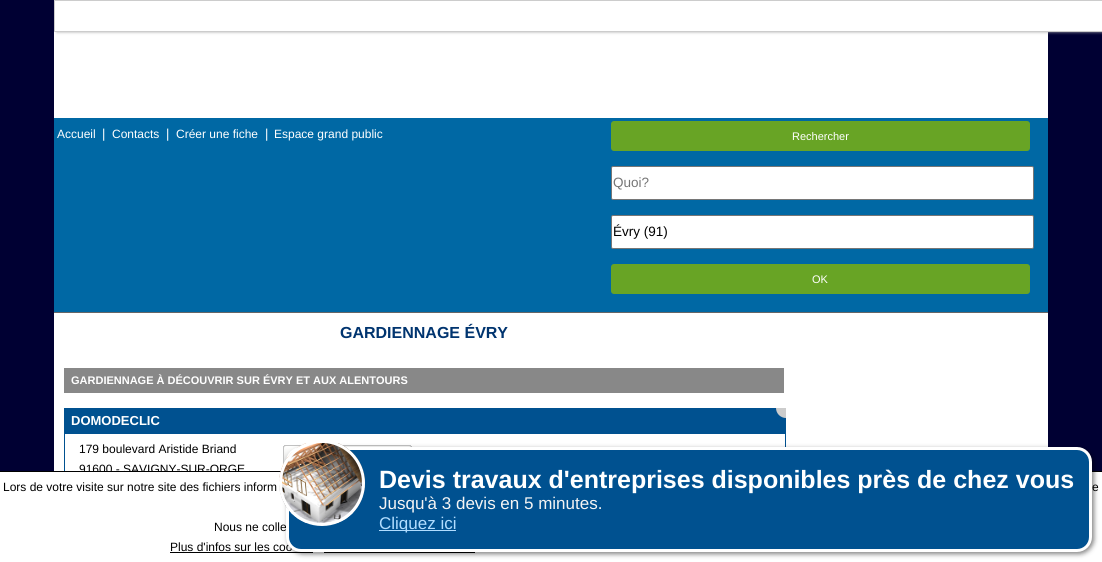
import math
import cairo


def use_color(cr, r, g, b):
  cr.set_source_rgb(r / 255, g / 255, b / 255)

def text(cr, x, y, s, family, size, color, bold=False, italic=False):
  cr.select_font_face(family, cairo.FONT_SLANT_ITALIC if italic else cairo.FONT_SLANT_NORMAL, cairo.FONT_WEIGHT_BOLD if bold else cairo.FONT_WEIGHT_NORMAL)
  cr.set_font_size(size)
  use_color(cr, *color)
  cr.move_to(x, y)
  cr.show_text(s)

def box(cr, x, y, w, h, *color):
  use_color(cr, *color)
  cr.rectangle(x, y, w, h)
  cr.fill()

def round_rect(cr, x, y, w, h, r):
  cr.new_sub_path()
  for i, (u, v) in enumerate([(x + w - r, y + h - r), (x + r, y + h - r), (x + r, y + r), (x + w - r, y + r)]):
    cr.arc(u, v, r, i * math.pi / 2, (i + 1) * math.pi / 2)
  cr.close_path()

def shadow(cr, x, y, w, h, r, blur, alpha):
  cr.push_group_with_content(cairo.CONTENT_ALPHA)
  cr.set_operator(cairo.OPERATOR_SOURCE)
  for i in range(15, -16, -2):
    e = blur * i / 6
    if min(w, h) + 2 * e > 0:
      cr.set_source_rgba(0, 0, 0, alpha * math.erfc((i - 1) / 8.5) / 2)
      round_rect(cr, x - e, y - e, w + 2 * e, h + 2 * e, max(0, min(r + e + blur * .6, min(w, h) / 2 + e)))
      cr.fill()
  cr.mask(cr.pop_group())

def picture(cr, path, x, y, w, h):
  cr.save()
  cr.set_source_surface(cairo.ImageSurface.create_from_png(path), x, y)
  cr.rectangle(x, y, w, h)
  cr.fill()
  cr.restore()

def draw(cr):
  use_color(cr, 0, 0, 51)
  cr.paint()
  box(cr, 54, 32, 994, 439, 255, 255, 255)
  use_color(cr, 170, 170, 170)
  shadow(cr, 57, 0, 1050, 32, 0, 1.5, 1)
  use_color(cr, 255, 255, 255)
  cr.rectangle(54.5, 0.5, 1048, 31)
  cr.fill_preserve()
  use_color(cr, 204, 204, 204)
  cr.set_line_width(1)
  cr.stroke()
  box(cr, 54, 118, 994, 194, 0, 104, 164)
  box(cr, 54, 312, 994, 1, 102, 102, 102)
  use_color(cr, 104, 164, 37)
  round_rect(cr, 611, 121, 419, 30, 3)
  cr.fill()
  use_color(cr, 255, 255, 255)
  round_rect(cr, 611.5, 166.5, 422, 33, 1.5)
  cr.fill_preserve()
  use_color(cr, 118, 118, 118)
  cr.stroke()
  use_color(cr, 255, 255, 255)
  round_rect(cr, 611.5, 215.5, 422, 33, 1.5)
  cr.fill_preserve()
  use_color(cr, 118, 118, 118)
  cr.stroke()
  use_color(cr, 104, 164, 37)
  round_rect(cr, 611, 264, 419, 30, 3)
  cr.fill()
  box(cr, 64, 368, 720, 25, 136, 136, 136)
  box(cr, 64, 408, 722, 25, 0, 81, 144)
  use_color(cr, 204, 204, 204)
  cr.new_path()
  cr.move_to(776, 408)
  cr.line_to(786, 408)
  cr.line_to(786, 418)
  cr.curve_to(780.5, 418, 776, 413.5, 776, 408)
  cr.close_path()
  cr.fill()
  cr.rectangle(64.5, 433.5, 721, 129)
  use_color(cr, 0, 81, 144)
  cr.stroke()
  picture(cr, "img_01.png", 283, 445, 129, 20)
  box(cr, 0, 471, 1102, 1, 0, 0, 0)
  text(cr, 57, 138, "Accueil", "Liberation Sans", 12, (255, 255, 255))
  text(cr, 102, 138, "|", "Liberation Sans", 13, (255, 255, 255))
  text(cr, 112, 138, "Contacts", "Liberation Sans", 12, (255, 255, 255))
  text(cr, 166, 138, "|", "Liberation Sans", 13, (255, 255, 255))
  text(cr, 176, 138, "Créer une fiche", "Liberation Sans", 12, (255, 255, 255))
  text(cr, 265, 138, "|", "Liberation Sans", 13, (255, 255, 255))
  text(cr, 274, 138, "Espace grand public", "Liberation Sans", 12, (255, 255, 255))
  text(cr, 792, 140, "Rechercher", "Liberation Sans", 11, (255, 255, 255))
  text(cr, 613, 187, "Quoi?", "Liberation Sans", 13.5, (117, 117, 117))
  text(cr, 613, 236, "Évry (91)", "Liberation Sans", 13.5, (0, 0, 0))
  text(cr, 812, 283, "OK", "Liberation Sans", 11, (255, 255, 255))
  text(cr, 340, 338, "GARDIENNAGE ÉVRY", "Liberation Sans", 16, (0, 52, 111), bold=True)
  text(cr, 71, 384, "GARDIENNAGE À DÉCOUVRIR SUR ÉVRY ET AUX ALENTOURS", "Liberation Sans", 11, (255, 255, 255), bold=True)
  text(cr, 71, 425, "DOMODECLIC", "Liberation Sans", 13, (255, 255, 255), bold=True)
  text(cr, 79, 453, "179 boulevard Aristide Briand", "Liberation Sans", 12, (0, 0, 0))
  text(cr, 79, 473, "91600 - SAVIGNY-SUR-ORGE", "Liberation Sans", 12, (0, 0, 0))
  box(cr, 0, 472, 1102, 90, 255, 255, 255)
  text(cr, 3, 491, "Lors de votre visite sur notre site des fichiers inform", "Liberation Sans", 12, (0, 0, 0))
  text(cr, 1092, 491, "e", "Liberation Sans", 12, (0, 0, 0))
  text(cr, 214, 531, "Nous ne colle", "Liberation Sans", 12, (0, 0, 0))
  text(cr, 170, 551, "Plus d'infos sur les coo", "Liberation Sans", 12, (0, 0, 0))
  box(cr, 170, 552, 143, 1, 0, 0, 0)
  box(cr, 324, 552, 151, 1, 0, 0, 0)
  use_color(cr, 0, 0, 0)
  shadow(cr, 288, 449, 806, 105, 15, 2.5, 0.5)
  use_color(cr, 0, 81, 144)
  round_rect(cr, 287.5, 448.5, 803, 102, 13.5)
  cr.fill_preserve()
  use_color(cr, 255, 255, 255)
  cr.set_line_width(3)
  cr.stroke()
  text(cr, 379, 488, "Devis travaux d'entreprises disponibles près de chez vous", "Liberation Sans", 25, (255, 255, 255), bold=True)
  picture(cr, "img_02.png", 279, 443, 86, 80)
  cr.arc(322, 483, 41.5, 0, 2 * math.pi)
  cr.stroke()
  box(cr, 379, 530, 77, 1, 177, 221, 255)
  text(cr, 379, 529, "Cliquez ici", "Liberation Sans", 17, (177, 221, 255))
  text(cr, 379, 509, "Jusqu'à 3 devis en 5 minutes.", "Liberation Sans", 17, (244, 244, 244))


surface = cairo.ImageSurface(cairo.FORMAT_RGB24, 1102, 562)
cr = cairo.Context(surface)
options = cairo.FontOptions()
options.set_hint_metrics(cairo.HINT_METRICS_OFF)
options.set_hint_style(cairo.HINT_STYLE_NONE)
cr.set_font_options(options)
cr.set_miter_limit(4)
draw(cr)
surface.write_to_png("out.png")
